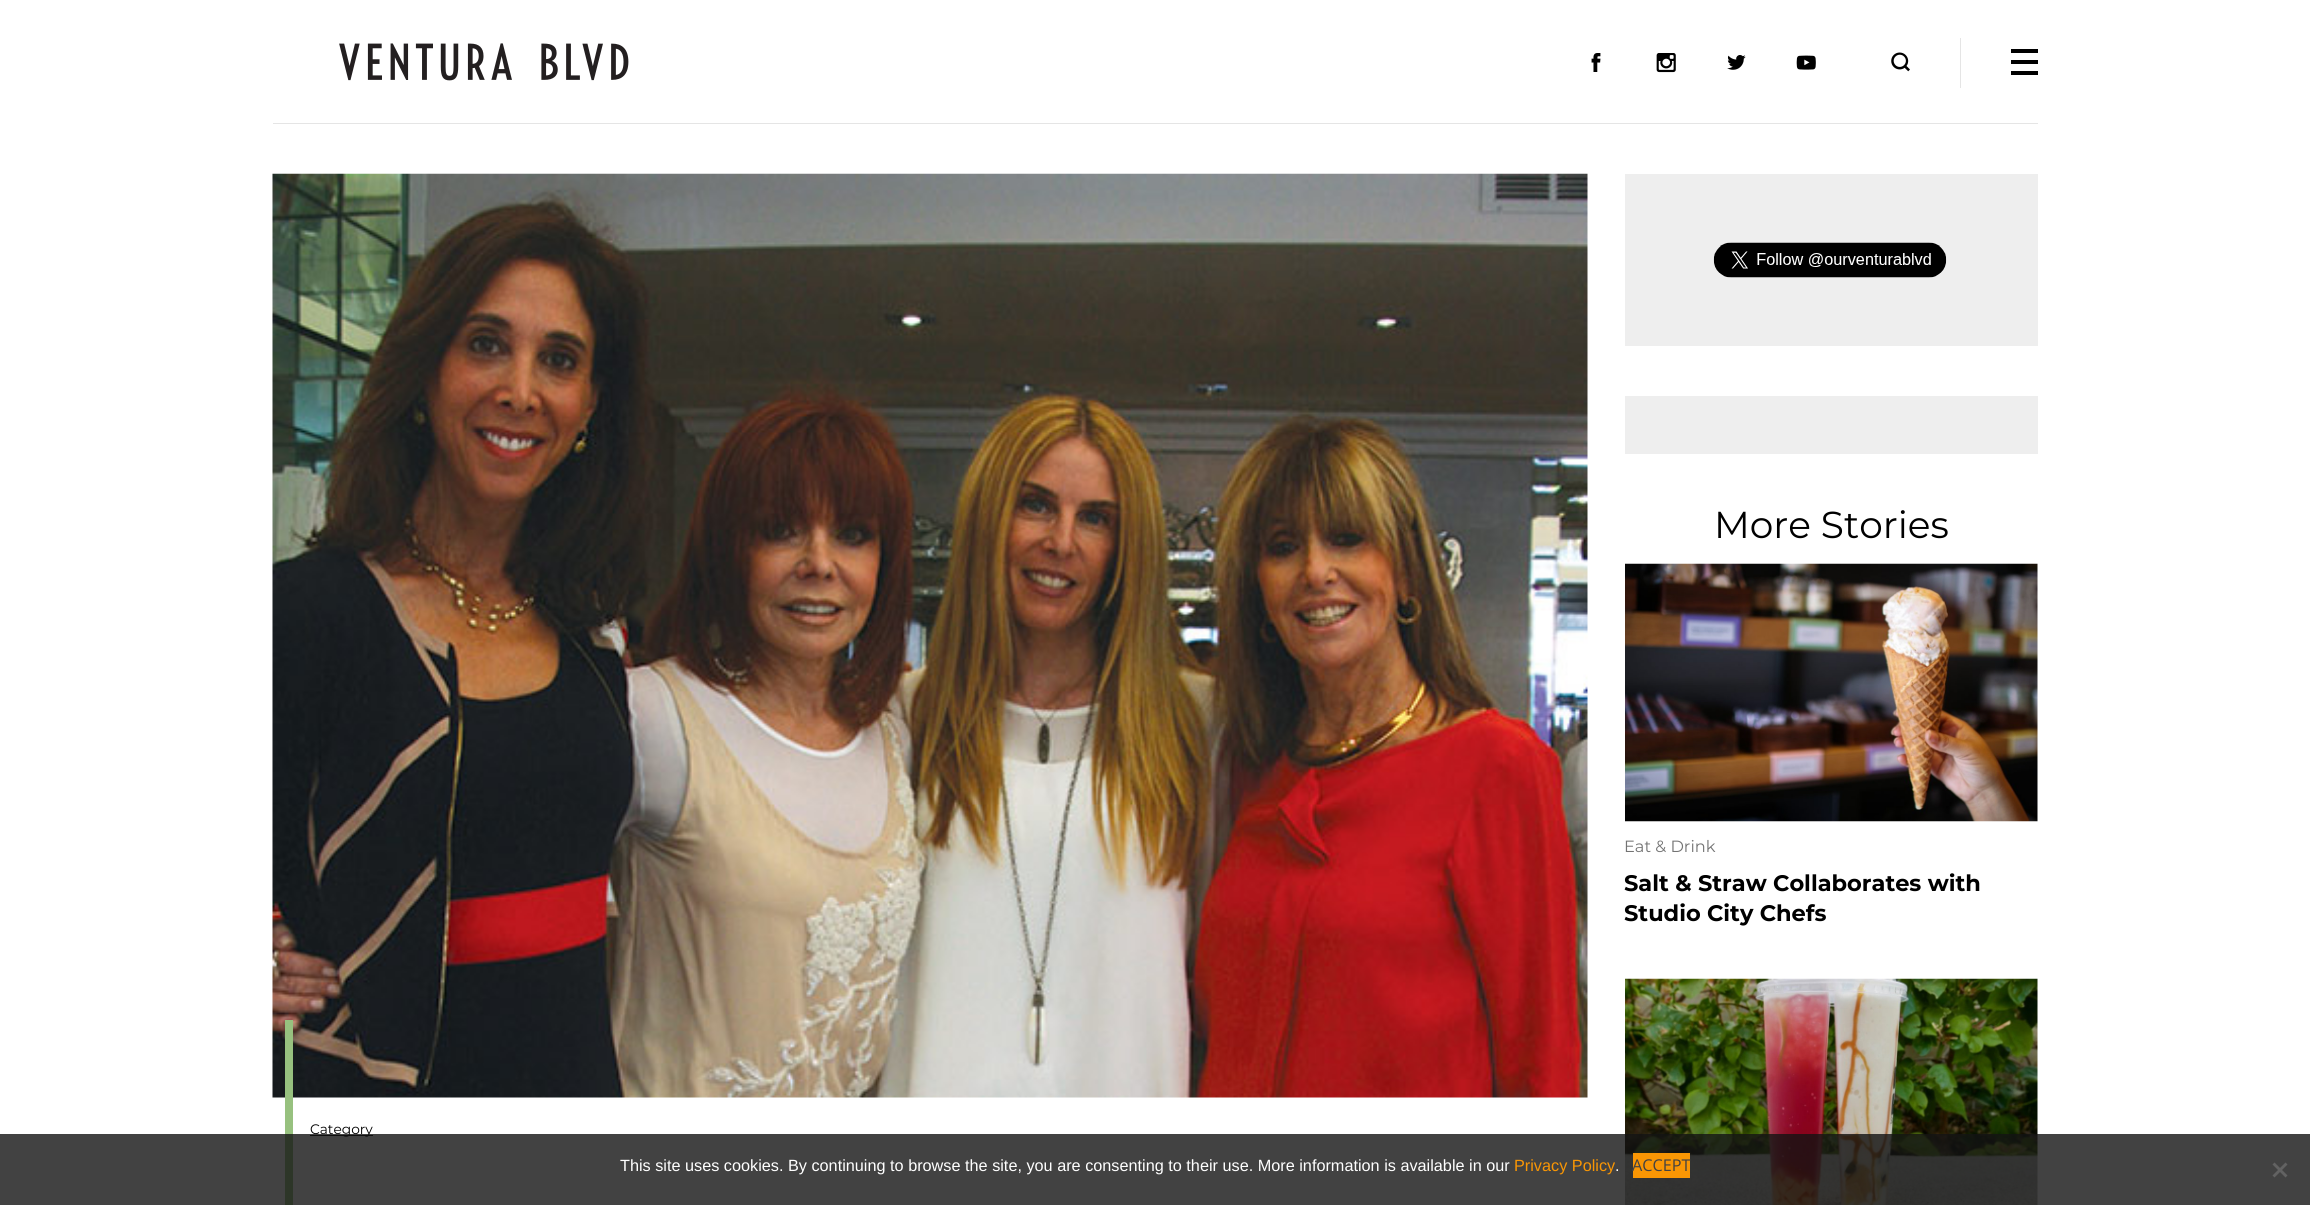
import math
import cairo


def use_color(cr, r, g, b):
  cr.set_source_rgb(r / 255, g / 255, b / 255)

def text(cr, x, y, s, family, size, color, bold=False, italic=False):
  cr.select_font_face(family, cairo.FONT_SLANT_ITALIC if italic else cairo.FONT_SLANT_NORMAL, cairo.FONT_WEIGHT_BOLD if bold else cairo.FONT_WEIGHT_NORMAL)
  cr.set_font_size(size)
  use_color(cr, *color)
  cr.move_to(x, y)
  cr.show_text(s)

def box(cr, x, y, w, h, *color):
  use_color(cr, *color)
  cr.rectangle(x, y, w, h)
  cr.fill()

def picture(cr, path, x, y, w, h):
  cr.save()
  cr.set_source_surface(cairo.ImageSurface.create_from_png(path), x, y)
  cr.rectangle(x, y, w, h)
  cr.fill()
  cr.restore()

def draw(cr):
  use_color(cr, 255, 255, 255)
  cr.paint()
  picture(cr, "img_01.png", 339, 43, 290, 38)
  picture(cr, "img_02.png", 1591, 53, 10, 19)
  picture(cr, "img_03.png", 1656, 53, 20, 20)
  picture(cr, "img_04.png", 1727, 55, 19, 15)
  picture(cr, "img_05.png", 1796, 55, 20, 15)
  box(cr, 1960, 38, 1, 50, 229, 229, 229)
  picture(cr, "img_06.png", 1891, 52, 19, 20)
  box(cr, 2011, 49, 27, 4, 0, 0, 0)
  box(cr, 2011, 60, 27, 4, 0, 0, 0)
  box(cr, 2011, 71, 27, 4, 0, 0, 0)
  box(cr, 273, 123, 1765, 1, 229, 229, 229)
  box(cr, 1625, 174, 413, 172, 238, 238, 238)
  picture(cr, "img_07.png", 1713, 242, 234, 36)
  box(cr, 1625, 396, 413, 58, 238, 238, 238)
  picture(cr, "img_08.png", 1625, 563, 413, 259)
  picture(cr, "img_09.png", 1625, 978, 413, 227)
  picture(cr, "img_10.png", 272, 173, 1316, 925)
  box(cr, 285, 1020, 8, 185, 151, 193, 127)
  box(cr, 310, 1135, 63, 1, 0, 0, 0)
  text(cr, 1714, 538, "More Stories", "Montserrat", 37.5, (0, 0, 0))
  text(cr, 1624, 852, "Eat & Drink", "Montserrat", 16.25, (115, 115, 115))
  text(cr, 1624, 891, "Salt & Straw Collaborates with", "Montserrat", 22.5, (0, 0, 0), bold=True)
  text(cr, 1624, 921, "Studio City Chefs", "Montserrat", 22.5, (0, 0, 0), bold=True)
  text(cr, 310, 1134, "Category", "Montserrat", 13.75, (0, 0, 0))
  cr.set_source_rgba(0.078, 0.078, 0.078, 0.8)
  cr.rectangle(0, 1134, 2310, 71)
  cr.fill()
  text(cr, 620, 1171, "This site uses cookies. By continuing to browse the site, you are consenting to their use. More information is available in our", "Liberation Sans", 16.25, (255, 255, 255))
  text(cr, 1514, 1171, "Privacy Policy", "Liberation Sans", 16.25, (249, 150, 4))
  text(cr, 1615, 1171, ".", "Liberation Sans", 16.25, (255, 255, 255))
  box(cr, 1633, 1153, 57, 25, 249, 150, 4)
  text(cr, 1632, 1171, "ACCEPT", "Open Sans", 16.25, (66, 66, 66))
  use_color(cr, 98, 98, 98)
  cr.new_path()
  cr.move_to(2285.5, 1162.5)
  cr.line_to(2287.5, 1164.5)
  cr.line_to(2274.5, 1177.5)
  cr.line_to(2272.5, 1175.5)
  cr.close_path()
  cr.fill()
  cr.new_path()
  cr.move_to(2272.5, 1164.5)
  cr.line_to(2274.5, 1162.5)
  cr.line_to(2287.5, 1175.5)
  cr.line_to(2285.5, 1177.5)
  cr.close_path()
  cr.fill()


surface = cairo.ImageSurface(cairo.FORMAT_RGB24, 2310, 1205)
cr = cairo.Context(surface)
options = cairo.FontOptions()
options.set_hint_metrics(cairo.HINT_METRICS_OFF)
options.set_hint_style(cairo.HINT_STYLE_NONE)
cr.set_font_options(options)
cr.set_miter_limit(4)
draw(cr)
surface.write_to_png("out.png")
